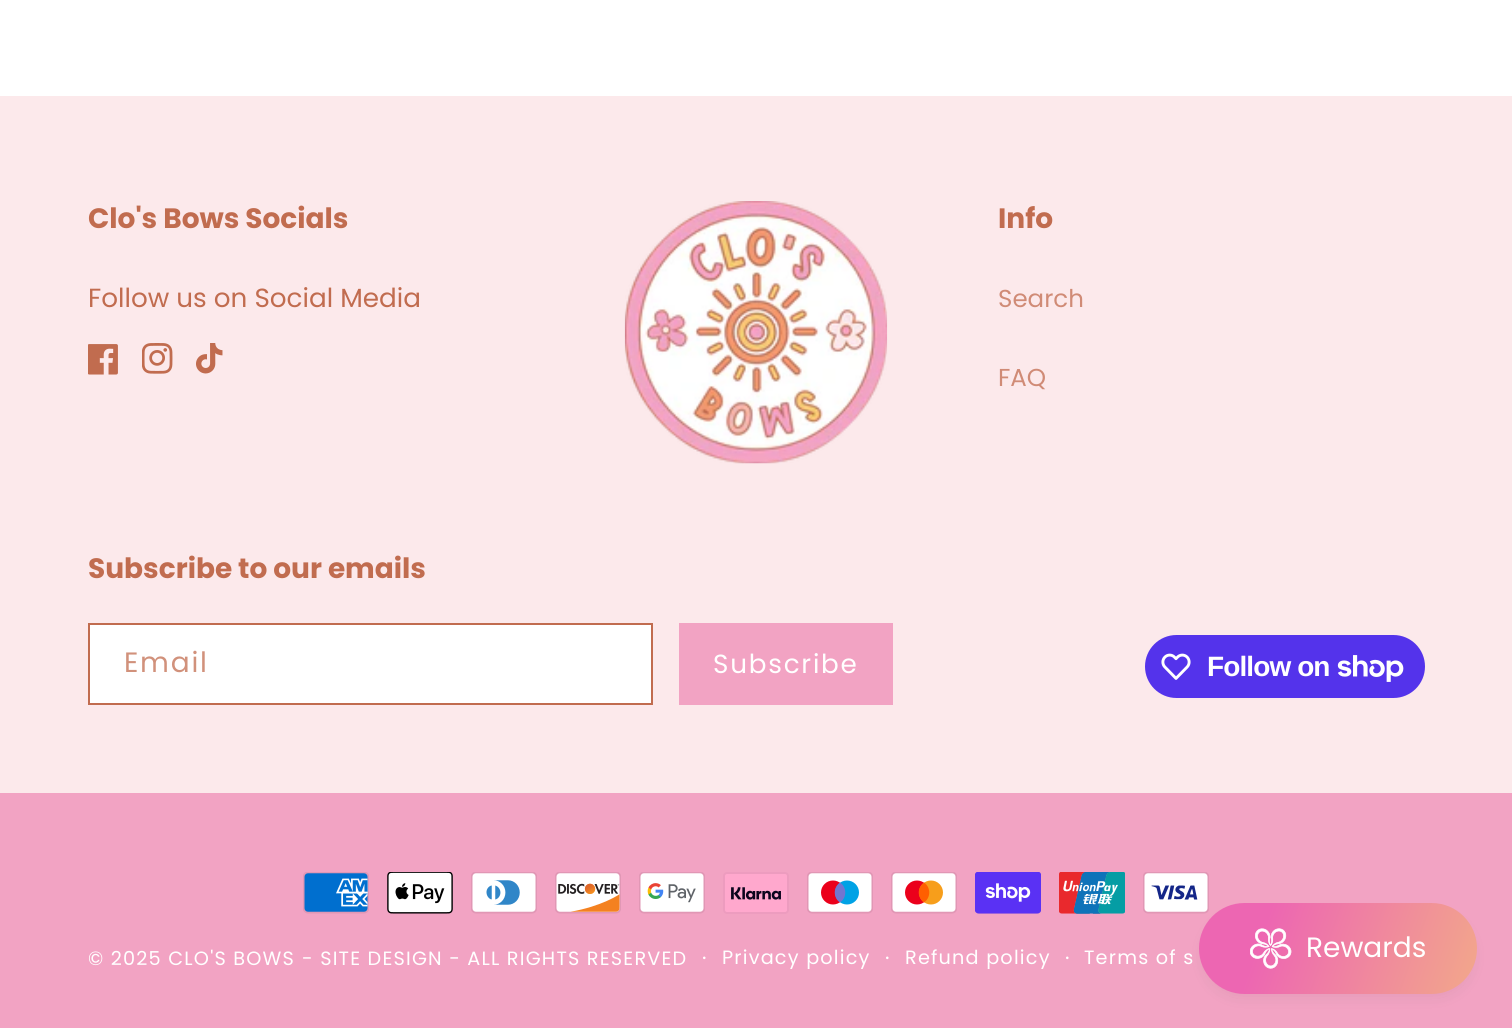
import math
import cairo


def use_color(cr, r, g, b):
  cr.set_source_rgb(r / 255, g / 255, b / 255)

def text(cr, x, y, s, family, size, color, bold=False, italic=False):
  cr.select_font_face(family, cairo.FONT_SLANT_ITALIC if italic else cairo.FONT_SLANT_NORMAL, cairo.FONT_WEIGHT_BOLD if bold else cairo.FONT_WEIGHT_NORMAL)
  cr.set_font_size(size)
  use_color(cr, *color)
  cr.move_to(x, y)
  cr.show_text(s)

def spaced_text(cr, x, y, s, letter, word):
  cr.move_to(x, y)
  for ch in s:
    cr.show_text(ch)
    cr.rel_move_to(letter + word * (ch == ' '), 0)

def box(cr, x, y, w, h, *color):
  use_color(cr, *color)
  cr.rectangle(x, y, w, h)
  cr.fill()

def round_rect(cr, x, y, w, h, r):
  cr.new_sub_path()
  for i, (u, v) in enumerate([(x + w - r, y + h - r), (x + r, y + h - r), (x + r, y + r), (x + w - r, y + r)]):
    cr.arc(u, v, r, i * math.pi / 2, (i + 1) * math.pi / 2)
  cr.close_path()

def shadow(cr, x, y, w, h, r, blur, alpha):
  cr.push_group_with_content(cairo.CONTENT_ALPHA)
  cr.set_operator(cairo.OPERATOR_SOURCE)
  for i in range(15, -16, -2):
    e = blur * i / 6
    if min(w, h) + 2 * e > 0:
      cr.set_source_rgba(0, 0, 0, alpha * math.erfc((i - 1) / 8.5) / 2)
      round_rect(cr, x - e, y - e, w + 2 * e, h + 2 * e, max(0, min(r + e + blur * .6, min(w, h) / 2 + e)))
      cr.fill()
  cr.mask(cr.pop_group())

def picture(cr, path, x, y, w, h):
  cr.save()
  cr.set_source_surface(cairo.ImageSurface.create_from_png(path), x, y)
  cr.rectangle(x, y, w, h)
  cr.fill()
  cr.restore()

def draw(cr):
  use_color(cr, 255, 255, 255)
  cr.paint()
  box(cr, 0, 96, 1512, 697, 252, 233, 235)
  picture(cr, "img_01.png", 88, 344, 30, 31)
  picture(cr, "img_02.png", 142, 343, 31, 31)
  picture(cr, "img_03.png", 196, 343, 27, 31)
  picture(cr, "img_04.png", 624, 201, 264, 263)
  box(cr, 90, 625, 561, 78, 255, 255, 255)
  cr.rectangle(89, 624, 563, 80)
  use_color(cr, 193, 108, 79)
  cr.stroke()
  box(cr, 679, 623, 214, 82, 242, 163, 195)
  use_color(cr, 84, 51, 235)
  round_rect(cr, 1145, 635, 280, 63, 31.5)
  cr.fill()
  picture(cr, "img_05.png", 1161, 653, 30, 27)
  picture(cr, "img_06.png", 1337, 655, 67, 27)
  box(cr, 0, 793, 1512, 235, 242, 163, 195)
  picture(cr, "img_07.png", 303, 872, 66, 42)
  picture(cr, "img_08.png", 387, 872, 66, 42)
  picture(cr, "img_09.png", 471, 872, 66, 42)
  picture(cr, "img_10.png", 555, 872, 66, 42)
  picture(cr, "img_11.png", 639, 872, 66, 42)
  picture(cr, "img_12.png", 723, 872, 66, 42)
  picture(cr, "img_13.png", 807, 872, 66, 42)
  picture(cr, "img_14.png", 891, 872, 66, 42)
  picture(cr, "img_15.png", 975, 872, 66, 42)
  picture(cr, "img_16.png", 1059, 872, 66, 42)
  picture(cr, "img_17.png", 1143, 872, 66, 42)
  use_color(cr, 68, 68, 68)
  shadow(cr, 1202, 914, 272, 84, 42, 7, 0.08)
  gradient = cairo.LinearGradient(1200, 900, 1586, 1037)
  gradient.add_color_stop_rgba(0.17, 0.929, 0.4, 0.698, 1)
  gradient.add_color_stop_rgba(1, 0.961, 0.796, 0.459, 1)
  cr.set_source(gradient)
  round_rect(cr, 1199, 903, 278, 91, 45.5)
  cr.fill()
  picture(cr, "img_18.png", 1250, 928, 42, 41)
  text(cr, 88, 228, "Clo's Bows Socials", "Poppins", 28, (193, 108, 79), bold=True)
  text(cr, 88, 307, "Follow us on Social Media", "Poppins", 26.25, (193, 108, 79))
  text(cr, 998, 228, "Info", "Poppins", 28, (193, 108, 79), bold=True)
  text(cr, 998, 307, "Search", "Poppins", 24.5, (208, 139, 118))
  text(cr, 998, 386, "FAQ", "Poppins", 24.5, (208, 139, 118))
  text(cr, 88, 578, "Subscribe to our emails", "Poppins", 28, (193, 108, 79), bold=True)
  cr.select_font_face("Poppins")
  use_color(cr, 209, 145, 123)
  spaced_text(cr, 124, 672, "Email", 1.75, 0)
  cr.set_font_size(26.25)
  use_color(cr, 255, 255, 255)
  spaced_text(cr, 713, 673, "Subscribe", 1.75, 0)
  cr.select_font_face("Liberation Sans", cairo.FONT_SLANT_NORMAL, cairo.FONT_WEIGHT_BOLD)
  cr.set_font_size(28)
  spaced_text(cr, 1207, 676, "Follow on", -0.9, 0)
  cr.select_font_face("Poppins")
  cr.set_font_size(19.25)
  spaced_text(cr, 88, 965, "© 2025 CLO'S BOWS", 1.2, 0)
  spaced_text(cr, 302, 965, "- SITE DESIGN - ALL RIGHTS RESERVED", 1.2, 0)
  cr.set_font_size(21)
  spaced_text(cr, 702, 965, "·", 1.2, 0)
  cr.set_font_size(19.25)
  spaced_text(cr, 722, 964, "Privacy policy", 1.2, 0)
  cr.set_font_size(21)
  spaced_text(cr, 885, 965, "·", 1.2, 0)
  cr.set_font_size(19.25)
  spaced_text(cr, 905, 964, "Refund policy", 1.2, 0)
  cr.set_font_size(21)
  spaced_text(cr, 1065, 965, "·", 1.2, 0)
  cr.set_font_size(19.25)
  spaced_text(cr, 1084, 964, "Terms of s", 1.2, 0)
  text(cr, 1306, 957, "Rewards", "Poppins", 28, (255, 255, 255))


surface = cairo.ImageSurface(cairo.FORMAT_RGB24, 1512, 1028)
cr = cairo.Context(surface)
options = cairo.FontOptions()
options.set_hint_metrics(cairo.HINT_METRICS_OFF)
options.set_hint_style(cairo.HINT_STYLE_NONE)
cr.set_font_options(options)
cr.set_miter_limit(4)
draw(cr)
surface.write_to_png("out.png")
